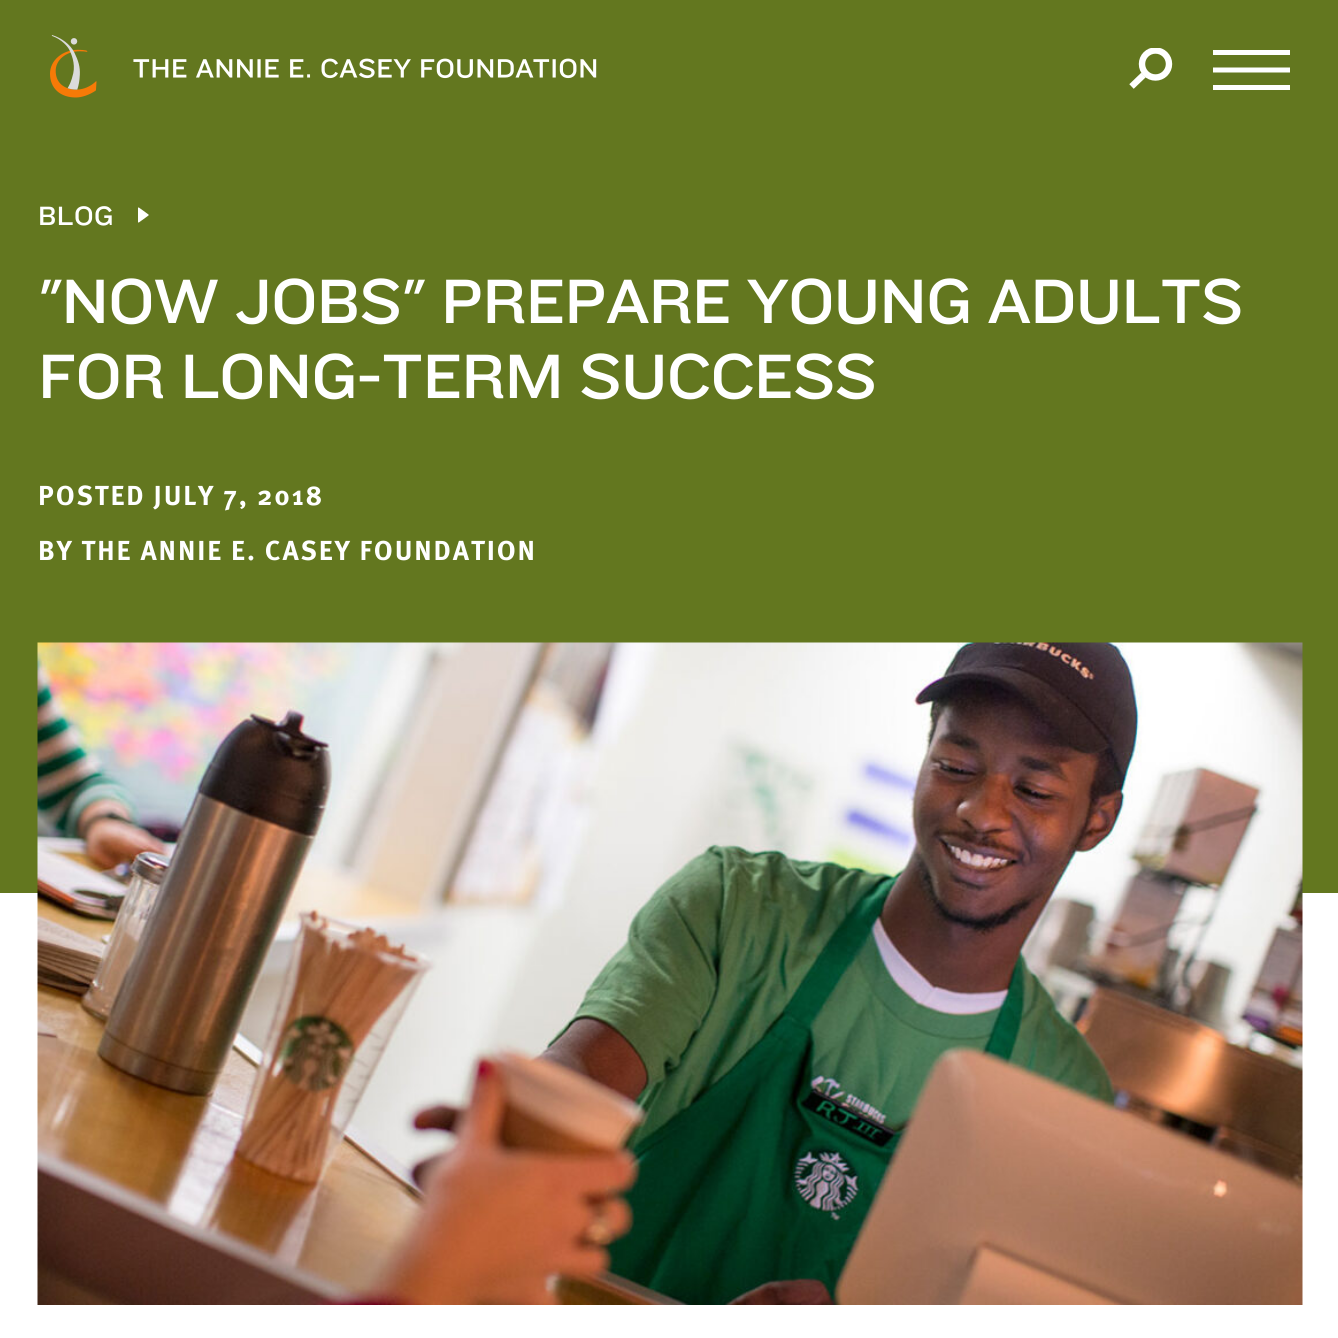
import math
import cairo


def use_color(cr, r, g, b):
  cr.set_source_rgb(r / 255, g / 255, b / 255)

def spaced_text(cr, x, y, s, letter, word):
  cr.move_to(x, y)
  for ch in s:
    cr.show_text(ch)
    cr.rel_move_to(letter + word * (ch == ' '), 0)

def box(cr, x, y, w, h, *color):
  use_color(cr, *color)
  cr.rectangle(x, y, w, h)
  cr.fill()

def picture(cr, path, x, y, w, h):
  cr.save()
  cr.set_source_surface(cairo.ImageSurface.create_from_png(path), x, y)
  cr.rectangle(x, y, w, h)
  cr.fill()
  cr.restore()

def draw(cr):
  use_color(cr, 255, 255, 255)
  cr.paint()
  box(cr, 0, 0, 1338, 893, 99, 119, 31)
  picture(cr, "img_01.png", 50, 35, 547, 63)
  cr.save()
  cr.rectangle(1128, 48, 45, 42)
  cr.clip()
  cr.arc(1155.5, 64, 13.5, 0, 2 * math.pi)
  use_color(cr, 255, 255, 255)
  cr.set_line_width(6.4)
  cr.stroke()
  cr.restore()
  cr.new_path()
  cr.move_to(1131.5, 86.5)
  cr.line_to(1143.5, 75)
  use_color(cr, 255, 255, 255)
  cr.set_line_width(6.4)
  cr.stroke()
  box(cr, 1213, 50, 77, 5, 255, 255, 255)
  cr.save()
  cr.rectangle(1213, 50, 77, 40)
  cr.clip()
  cr.new_path()
  cr.move_to(1212.5, 70)
  cr.line_to(1290, 70)
  cr.set_line_width(5)
  cr.stroke()
  cr.restore()
  box(cr, 1213, 85, 77, 5, 255, 255, 255)
  picture(cr, "img_02.png", 138, 207, 11, 16)
  picture(cr, "img_03.png", 37, 642, 1266, 663)
  cr.select_font_face("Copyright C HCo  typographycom")
  cr.set_font_size(27.5)
  spaced_text(cr, 38, 225, "BLOG", 0.5, 0)
  cr.set_font_size(65)
  spaced_text(cr, 38, 323, "\"NOW JOBS\" PREPARE YOUNG ADULTS", -0.65, 0)
  spaced_text(cr, 38, 398, "FOR LONG-TERM SUCCESS", -0.65, 0)
  cr.select_font_face("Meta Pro", cairo.FONT_SLANT_NORMAL, cairo.FONT_WEIGHT_BOLD)
  cr.set_font_size(27.5)
  spaced_text(cr, 38, 505, "POSTED JULY 7, 2018", 1.9, 0)
  spaced_text(cr, 38, 560, "BY THE ANNIE E. CASEY FOUNDATION", 1.9, 0)


surface = cairo.ImageSurface(cairo.FORMAT_RGB24, 1338, 1338)
cr = cairo.Context(surface)
options = cairo.FontOptions()
options.set_hint_metrics(cairo.HINT_METRICS_OFF)
options.set_hint_style(cairo.HINT_STYLE_NONE)
cr.set_font_options(options)
cr.set_miter_limit(4)
draw(cr)
surface.write_to_png("out.png")
